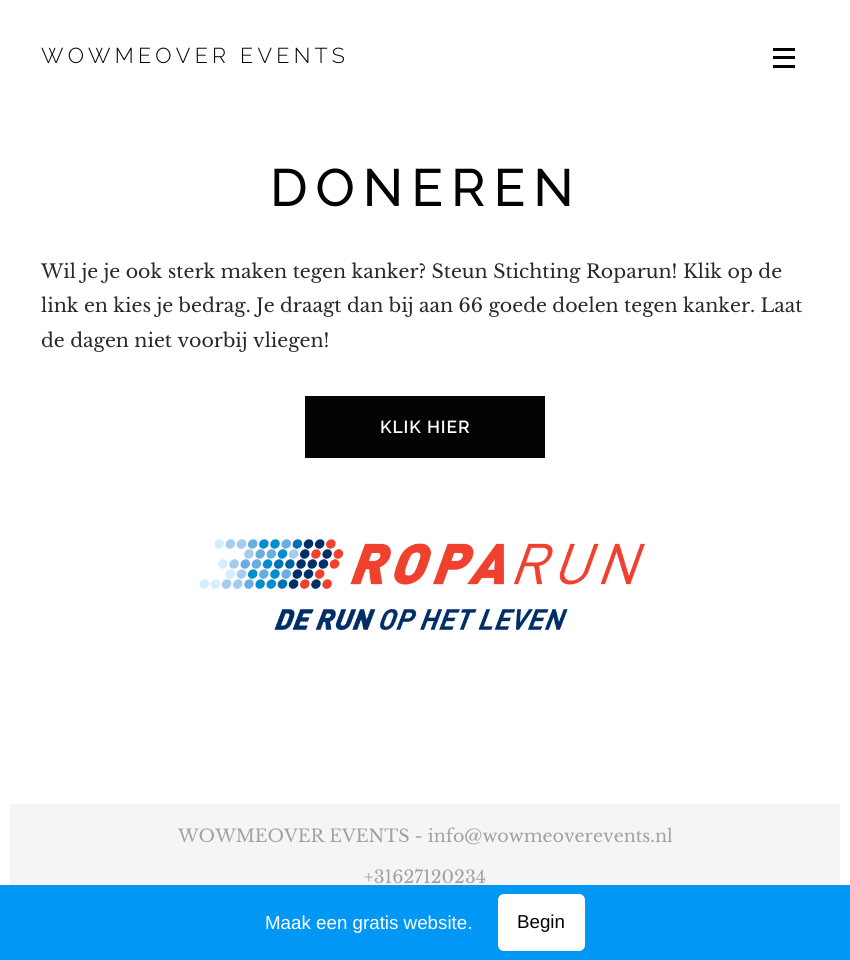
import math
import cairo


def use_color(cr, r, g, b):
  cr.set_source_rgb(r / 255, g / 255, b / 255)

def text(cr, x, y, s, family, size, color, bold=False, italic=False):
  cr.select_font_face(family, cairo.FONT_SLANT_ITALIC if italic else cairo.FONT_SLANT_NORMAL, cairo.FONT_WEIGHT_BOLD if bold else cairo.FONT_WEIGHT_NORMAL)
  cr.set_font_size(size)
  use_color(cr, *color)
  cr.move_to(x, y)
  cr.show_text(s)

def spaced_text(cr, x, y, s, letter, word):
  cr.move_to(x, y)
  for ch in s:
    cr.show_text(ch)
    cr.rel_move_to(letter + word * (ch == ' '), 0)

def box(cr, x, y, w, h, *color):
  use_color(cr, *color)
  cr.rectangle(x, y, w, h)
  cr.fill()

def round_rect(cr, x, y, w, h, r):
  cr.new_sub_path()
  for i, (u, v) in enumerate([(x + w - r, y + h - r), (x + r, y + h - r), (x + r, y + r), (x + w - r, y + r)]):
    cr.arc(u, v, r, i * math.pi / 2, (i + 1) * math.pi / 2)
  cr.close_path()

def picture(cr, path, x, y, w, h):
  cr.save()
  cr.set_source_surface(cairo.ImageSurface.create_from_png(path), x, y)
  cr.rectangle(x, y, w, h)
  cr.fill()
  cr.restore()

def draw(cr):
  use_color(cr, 255, 255, 255)
  cr.paint()
  box(cr, 773, 56, 22, 3, 3, 3, 3)
  box(cr, 773, 48, 22, 3, 3, 3, 3)
  box(cr, 773, 65, 22, 3, 3, 3, 3)
  box(cr, 305, 396, 240, 62, 3, 3, 3)
  picture(cr, "img_01.png", 199, 539, 446, 91)
  box(cr, 10, 804, 830, 81, 245, 245, 245)
  box(cr, 0, 885, 850, 75, 0, 151, 245)
  use_color(cr, 255, 255, 255)
  round_rect(cr, 498, 894, 87, 57, 6)
  cr.fill()
  cr.select_font_face("Raleway Light")
  cr.set_font_size(21.5)
  use_color(cr, 3, 3, 3)
  spaced_text(cr, 41, 63, "WOWMEOVER EVENTS", 4.25, 0)
  cr.select_font_face("Raleway Medium")
  cr.set_font_size(52.5)
  spaced_text(cr, 270, 206, "DONEREN", 8, 0)
  text(cr, 41, 278, "Wil je je ook sterk maken tegen kanker? Steun Stichting Roparun! Klik op de", "Libre Baskerville", 19, (40, 40, 40))
  text(cr, 41, 312, "link en kies je bedrag. Je draagt dan bij aan 66 goede doelen tegen kanker. Laat", "Libre Baskerville", 19, (40, 40, 40))
  text(cr, 41, 347, "de dagen niet voorbij vliegen!", "Libre Baskerville", 19, (40, 40, 40))
  cr.select_font_face("Raleway SemiBold")
  cr.set_font_size(17.5)
  use_color(cr, 255, 255, 255)
  spaced_text(cr, 380, 433, "KLIK HIER", 0.9, 0)
  text(cr, 178, 842, "WOWMEOVER EVENTS - info@wowmeoverevents.nl", "Libre Baskerville", 17.5, (161, 161, 161))
  text(cr, 364, 883, "+31627120234", "Libre Baskerville", 17.5, (161, 161, 161))
  text(cr, 265, 929, "Maak een gratis website.", "Liberation Sans", 18.75, (255, 255, 255))
  text(cr, 517, 928, "Begin", "Liberation Sans", 18.75, (3, 3, 3))


surface = cairo.ImageSurface(cairo.FORMAT_RGB24, 850, 960)
cr = cairo.Context(surface)
options = cairo.FontOptions()
options.set_hint_metrics(cairo.HINT_METRICS_OFF)
options.set_hint_style(cairo.HINT_STYLE_NONE)
cr.set_font_options(options)
cr.set_miter_limit(4)
draw(cr)
surface.write_to_png("out.png")
